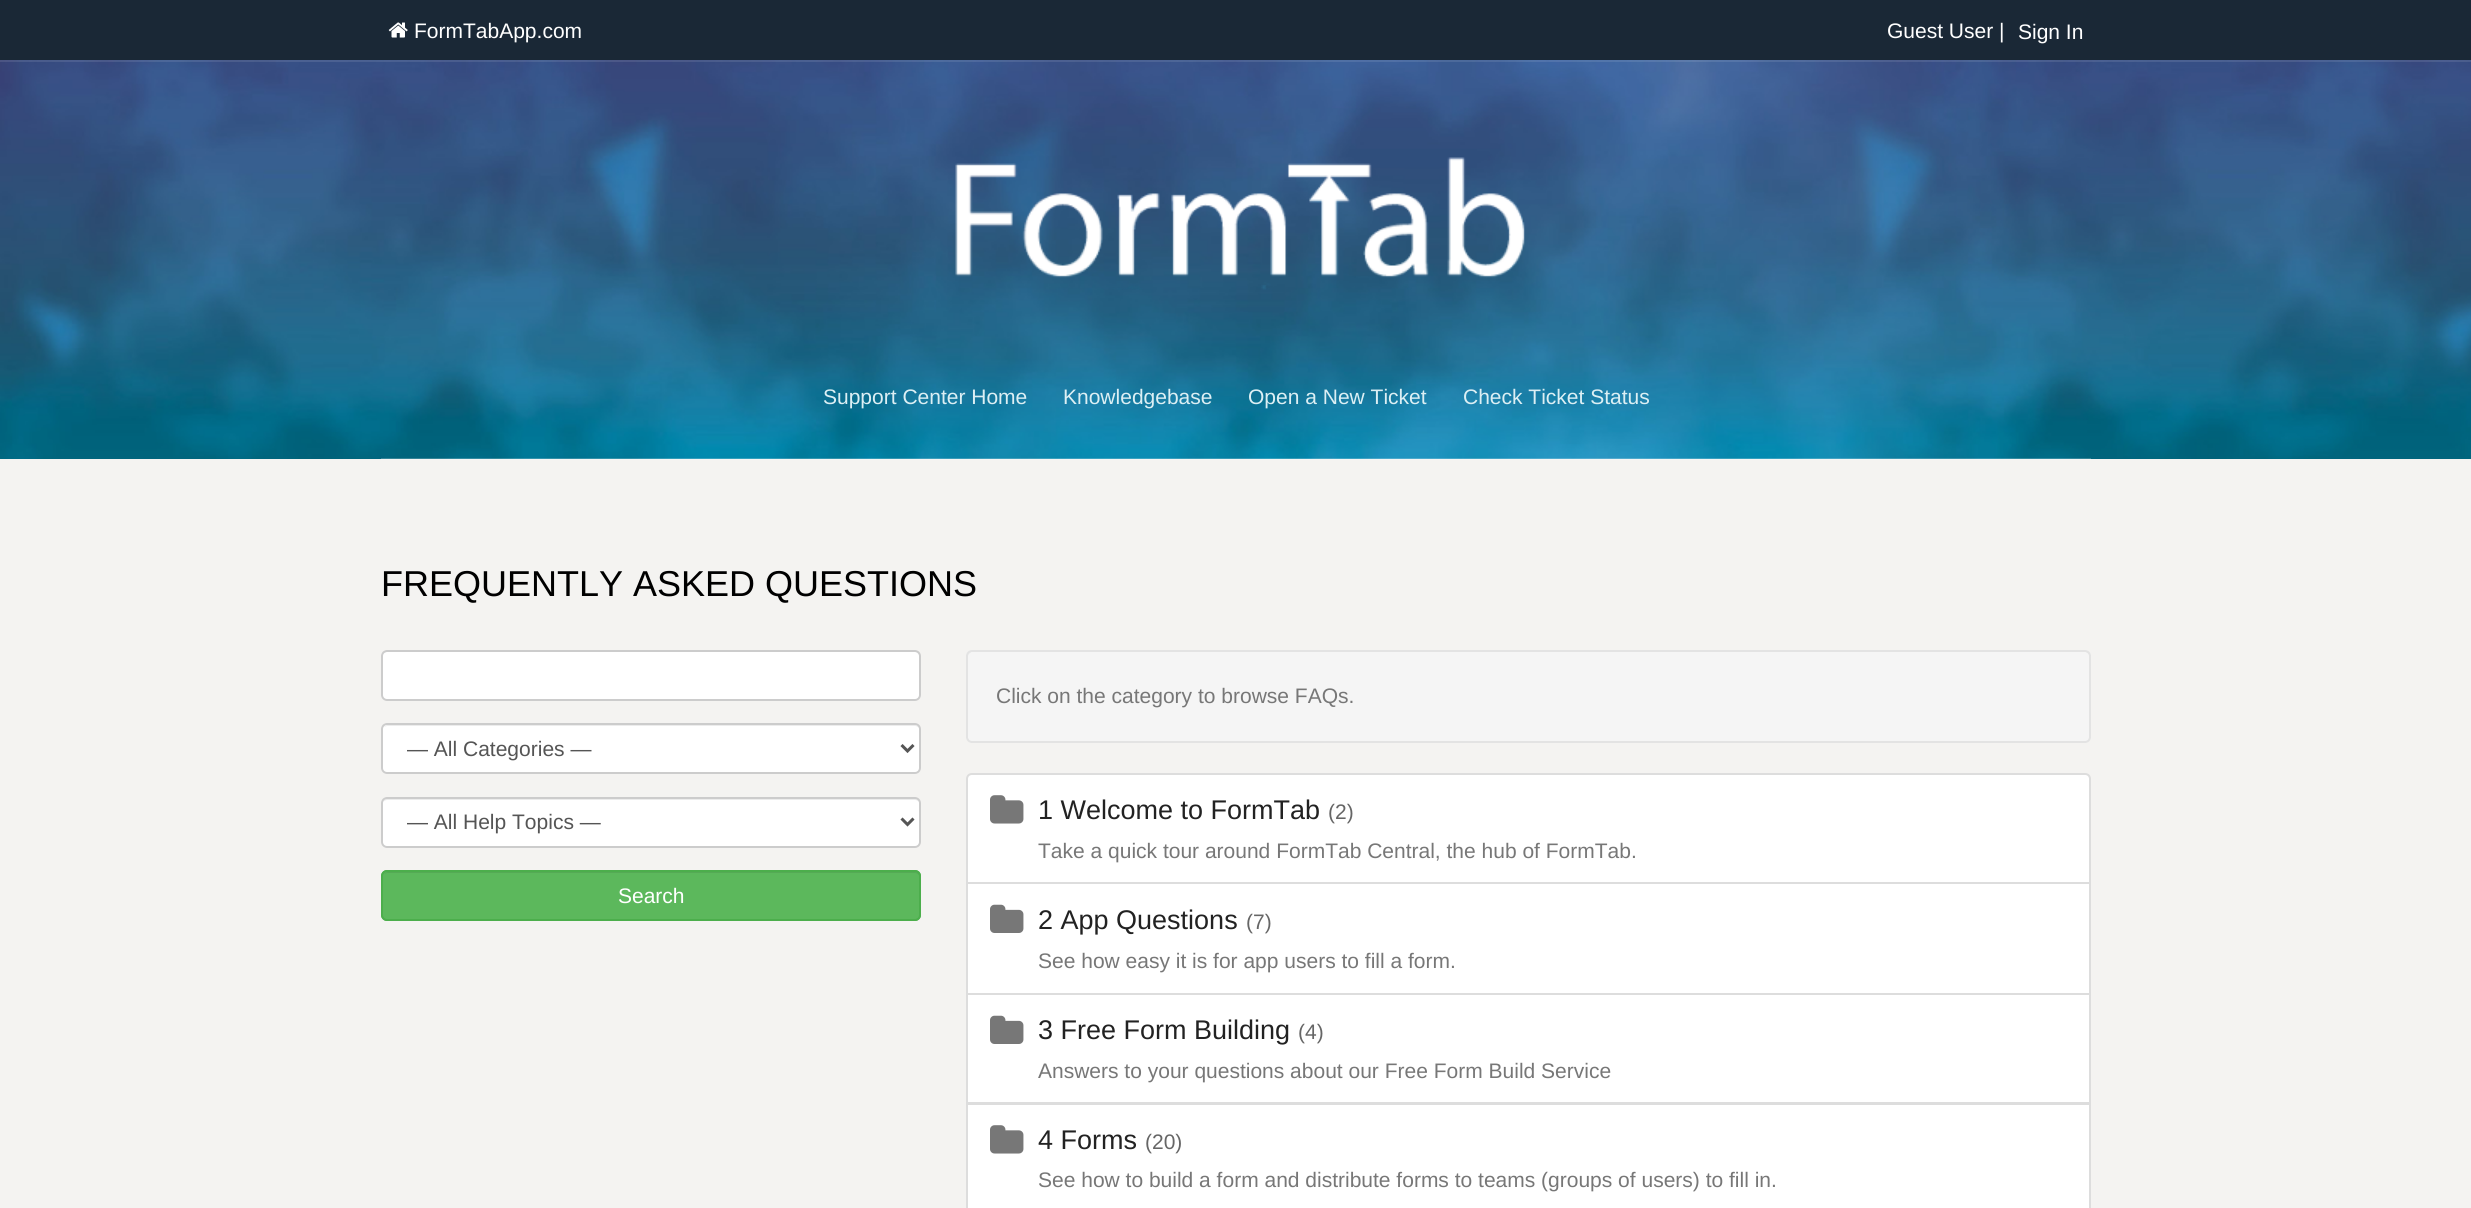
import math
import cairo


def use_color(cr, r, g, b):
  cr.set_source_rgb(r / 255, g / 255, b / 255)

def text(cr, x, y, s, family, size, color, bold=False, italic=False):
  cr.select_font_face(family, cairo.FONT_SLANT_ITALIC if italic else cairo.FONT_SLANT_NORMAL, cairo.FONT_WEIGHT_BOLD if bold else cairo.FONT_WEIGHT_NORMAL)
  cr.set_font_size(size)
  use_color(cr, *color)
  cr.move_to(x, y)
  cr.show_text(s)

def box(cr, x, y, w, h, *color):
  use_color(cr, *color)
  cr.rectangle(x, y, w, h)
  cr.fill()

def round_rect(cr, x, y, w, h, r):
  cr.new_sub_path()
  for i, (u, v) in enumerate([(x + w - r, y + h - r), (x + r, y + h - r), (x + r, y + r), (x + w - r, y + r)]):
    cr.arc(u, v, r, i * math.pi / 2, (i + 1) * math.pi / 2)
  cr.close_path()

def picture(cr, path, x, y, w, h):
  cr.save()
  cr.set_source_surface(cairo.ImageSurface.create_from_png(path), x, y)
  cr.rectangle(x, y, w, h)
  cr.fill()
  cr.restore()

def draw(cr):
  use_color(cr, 255, 255, 255)
  cr.paint()
  picture(cr, "img_01.png", 0, 60, 2471, 399)
  box(cr, 0, 0, 2471, 60, 26, 40, 54)
  picture(cr, "img_02.png", 388, 22, 20, 16)
  cr.set_source_rgba(1, 1, 1, 0.1)
  cr.rectangle(0, 60, 2471, 2)
  cr.fill()
  picture(cr, "img_03.png", 955, 157, 570, 133)
  box(cr, 0, 459, 2471, 749, 244, 243, 241)
  cr.set_source_rgba(1, 1, 1, 0.2)
  cr.rectangle(381, 458, 1710, 2)
  cr.fill()
  use_color(cr, 255, 255, 255)
  round_rect(cr, 381, 650, 540, 51, 6)
  cr.fill()
  use_color(cr, 236, 236, 236)
  cr.new_path()
  cr.move_to(387, 652)
  cr.line_to(915, 652)
  cr.curve_to(917, 652, 920, 655, 920, 657)
  cr.line_to(920, 656)
  cr.curve_to(920, 653, 918, 651, 915, 651)
  cr.line_to(388, 651)
  cr.curve_to(386, 651, 384, 652, 383, 654)
  cr.curve_to(384, 653, 386, 652, 387, 652)
  cr.close_path()
  cr.fill()
  round_rect(cr, 382, 651, 538, 49, 5)
  use_color(cr, 204, 204, 204)
  cr.stroke()
  use_color(cr, 255, 255, 255)
  round_rect(cr, 381, 723, 540, 51, 6)
  cr.fill()
  use_color(cr, 236, 236, 236)
  cr.new_path()
  cr.move_to(387, 726)
  cr.line_to(915, 726)
  cr.curve_to(917, 726, 920, 728, 920, 730)
  cr.curve_to(920, 727, 918, 725, 915, 725)
  cr.line_to(388, 725)
  cr.curve_to(386, 725, 385, 726, 384, 727)
  cr.close_path()
  cr.fill()
  round_rect(cr, 382, 724, 538, 49, 5)
  use_color(cr, 204, 204, 204)
  cr.stroke()
  cr.new_path()
  cr.move_to(901.5, 745)
  cr.line_to(907.5, 751)
  cr.line_to(913.5, 745)
  use_color(cr, 85, 85, 85)
  cr.set_line_width(3)
  cr.stroke()
  use_color(cr, 255, 255, 255)
  round_rect(cr, 381, 797, 540, 51, 6)
  cr.fill()
  use_color(cr, 236, 236, 236)
  cr.new_path()
  cr.move_to(387, 800)
  cr.line_to(915, 800)
  cr.curve_to(917, 800, 920, 802, 920, 804)
  cr.line_to(920, 803)
  cr.curve_to(920, 800, 918, 798, 915, 798)
  cr.line_to(388, 798)
  cr.curve_to(386, 798, 384, 800, 383, 802)
  cr.curve_to(384, 801, 386, 800, 387, 800)
  cr.close_path()
  cr.fill()
  round_rect(cr, 382, 798, 538, 49, 5)
  use_color(cr, 204, 204, 204)
  cr.set_line_width(2)
  cr.stroke()
  cr.new_path()
  cr.move_to(901.5, 818.5)
  cr.line_to(907.5, 824.5)
  cr.line_to(913.5, 818.5)
  use_color(cr, 85, 85, 85)
  cr.set_line_width(3)
  cr.stroke()
  use_color(cr, 92, 184, 92)
  round_rect(cr, 381, 870, 540, 51, 6)
  cr.fill()
  use_color(cr, 85, 170, 85)
  cr.new_path()
  cr.move_to(387, 873)
  cr.line_to(915, 873)
  cr.curve_to(917, 873, 920, 875, 920, 878)
  cr.line_to(920, 877)
  cr.curve_to(920, 874, 918, 872, 915, 872)
  cr.line_to(388, 872)
  cr.curve_to(386, 872, 385, 873, 384, 874)
  cr.close_path()
  cr.fill()
  round_rect(cr, 382, 871, 538, 49, 5)
  use_color(cr, 76, 174, 76)
  cr.set_line_width(2)
  cr.stroke()
  use_color(cr, 245, 245, 245)
  round_rect(cr, 966, 650, 1125, 93, 6)
  cr.fill()
  use_color(cr, 233, 233, 233)
  cr.new_path()
  cr.move_to(972, 652)
  cr.line_to(2085, 652)
  cr.curve_to(2087, 652, 2090, 655, 2090, 657)
  cr.curve_to(2090, 654, 2088, 651, 2085, 651)
  cr.line_to(973, 651)
  cr.curve_to(970, 651, 968, 654, 968, 657)
  cr.curve_to(968, 655, 970, 652, 972, 652)
  cr.close_path()
  cr.fill()
  round_rect(cr, 967, 651, 1123, 91, 5)
  use_color(cr, 227, 227, 227)
  cr.stroke()
  use_color(cr, 255, 255, 255)
  cr.new_path()
  cr.move_to(972, 774)
  cr.line_to(2085, 774)
  cr.curve_to(2088, 774, 2090, 776, 2090, 779)
  cr.line_to(2090, 883)
  cr.line_to(967, 883)
  cr.line_to(967, 779)
  cr.curve_to(967, 776, 969, 774, 972, 774)
  cr.close_path()
  cr.fill_preserve()
  use_color(cr, 221, 221, 221)
  cr.stroke()
  picture(cr, "img_04.png", 990, 795, 34, 29)
  use_color(cr, 255, 255, 255)
  cr.rectangle(967, 883, 1123, 111)
  cr.fill_preserve()
  use_color(cr, 221, 221, 221)
  cr.stroke()
  picture(cr, "img_05.png", 990, 904, 34, 29)
  use_color(cr, 255, 255, 255)
  cr.rectangle(967, 994, 1123, 109)
  cr.fill_preserve()
  use_color(cr, 221, 221, 221)
  cr.stroke()
  picture(cr, "img_05.png", 990, 1015, 34, 29)
  use_color(cr, 255, 255, 255)
  cr.rectangle(967, 1104, 1123, 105)
  cr.fill_preserve()
  use_color(cr, 221, 221, 221)
  cr.stroke()
  picture(cr, "img_04.png", 990, 1125, 34, 29)
  text(cr, 414, 38, "FormTabApp.com", "Arimo", 21, (255, 255, 255))
  text(cr, 1887, 38, "Guest User |", "Arimo", 21, (255, 255, 255))
  text(cr, 2018, 39, "Sign In", "Arimo", 21, (255, 255, 255))
  text(cr, 823, 404, "Support Center Home", "Arimo", 21, (220, 239, 244))
  text(cr, 1063, 404, "Knowledgebase", "Arimo", 21, (220, 239, 244))
  text(cr, 1248, 404, "Open a New Ticket", "Arimo", 21, (220, 239, 244))
  text(cr, 1463, 404, "Check Ticket Status", "Arimo", 21, (220, 239, 244))
  text(cr, 381, 596, "FREQUENTLY ASKED QUESTIONS", "Liberation Sans", 36, (0, 0, 0))
  text(cr, 407, 756, "— All Categories —", "Arimo", 21, (85, 85, 85))
  text(cr, 407, 829, "— All Help Topics —", "Arimo", 21, (85, 85, 85))
  text(cr, 618, 903, "Search", "Arimo", 21, (255, 255, 255))
  text(cr, 996, 703, "Click on the category to browse FAQs.", "Arimo", 21, (119, 119, 119))
  text(cr, 1038, 819, "1 Welcome to FormTab", "Liberation Sans", 27, (34, 34, 34))
  text(cr, 1328, 819, "(2)", "Liberation Sans", 21, (102, 102, 102))
  text(cr, 1038, 858, "Take a quick tour around FormTab Central, the hub of FormTab.", "Arimo", 21, (119, 119, 119))
  text(cr, 1038, 929, "2 App Questions", "Liberation Sans", 27, (34, 34, 34))
  text(cr, 1246, 929, "(7)", "Liberation Sans", 21, (102, 102, 102))
  text(cr, 1038, 968, "See how easy it is for app users to fill a form.", "Arimo", 21, (119, 119, 119))
  text(cr, 1038, 1039, "3 Free Form Building", "Liberation Sans", 27, (34, 34, 34))
  text(cr, 1298, 1039, "(4)", "Liberation Sans", 21, (102, 102, 102))
  text(cr, 1038, 1078, "Answers to your questions about our Free Form Build Service", "Arimo", 21, (119, 119, 119))
  text(cr, 1038, 1149, "4 Forms", "Liberation Sans", 27, (34, 34, 34))
  text(cr, 1145, 1149, "(20)", "Liberation Sans", 21, (102, 102, 102))
  text(cr, 1038, 1187, "See how to build a form and distribute forms to teams (groups of users) to fill in.", "Arimo", 21, (119, 119, 119))


surface = cairo.ImageSurface(cairo.FORMAT_RGB24, 2471, 1208)
cr = cairo.Context(surface)
options = cairo.FontOptions()
options.set_hint_metrics(cairo.HINT_METRICS_OFF)
options.set_hint_style(cairo.HINT_STYLE_NONE)
cr.set_font_options(options)
cr.set_miter_limit(4)
draw(cr)
surface.write_to_png("out.png")
